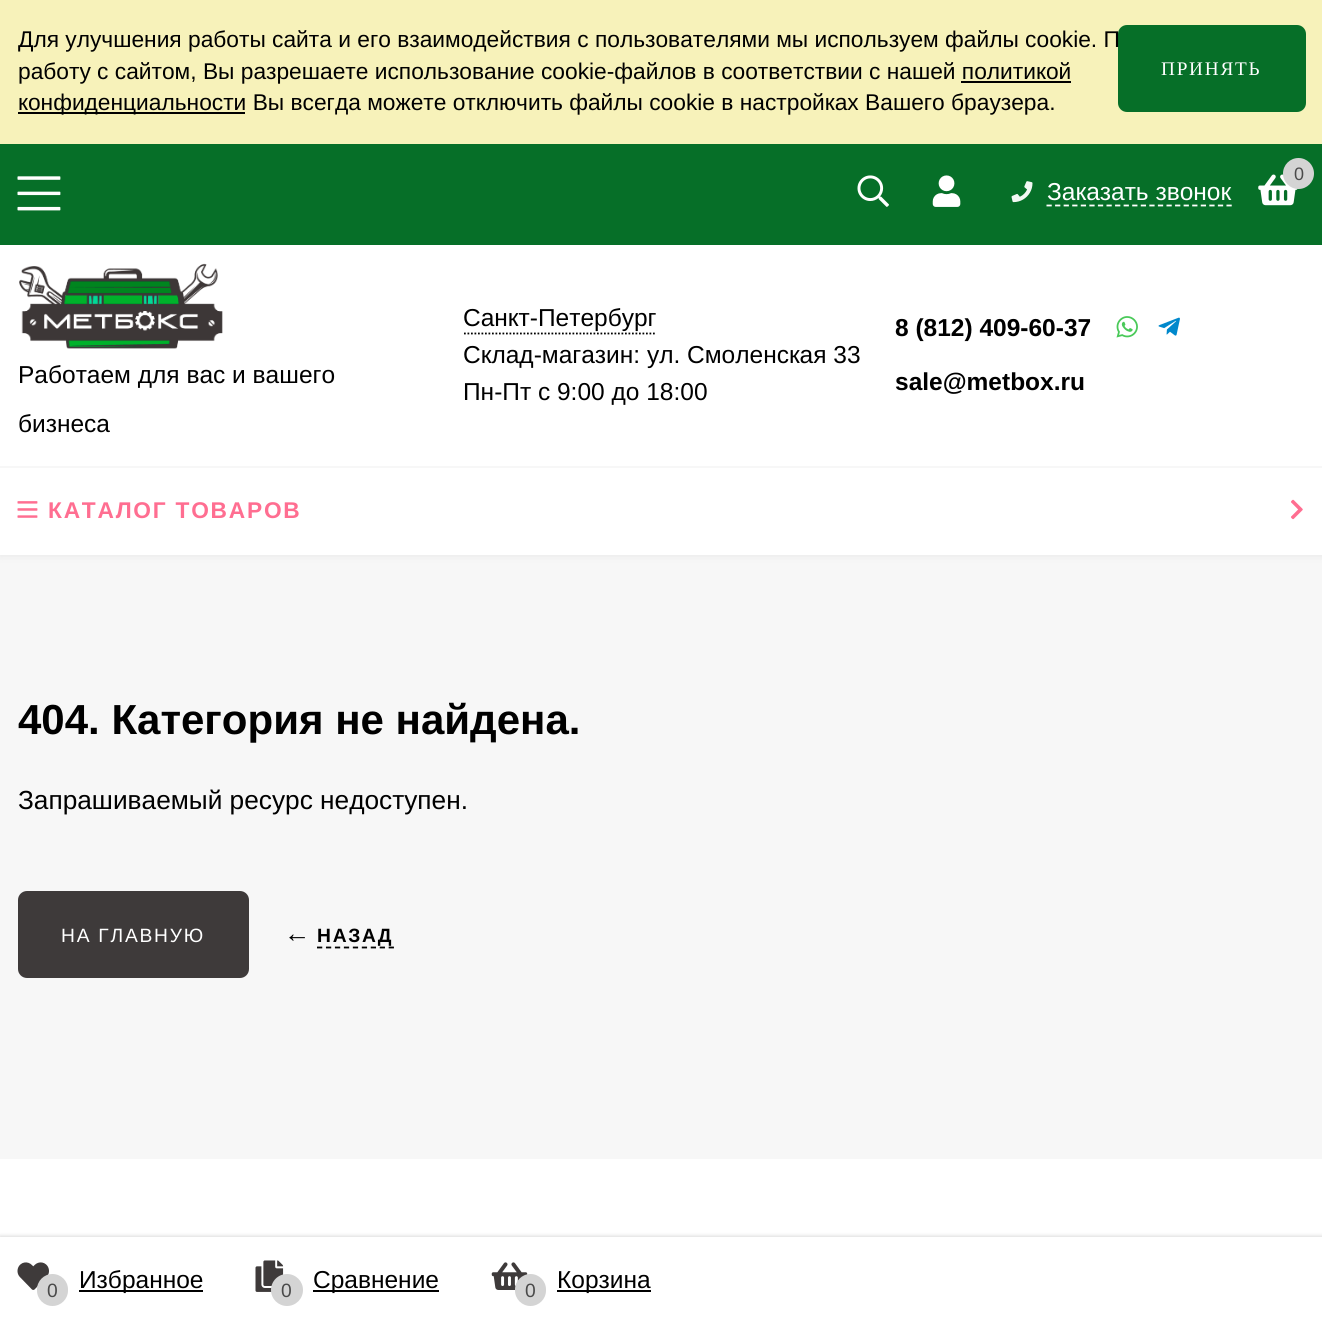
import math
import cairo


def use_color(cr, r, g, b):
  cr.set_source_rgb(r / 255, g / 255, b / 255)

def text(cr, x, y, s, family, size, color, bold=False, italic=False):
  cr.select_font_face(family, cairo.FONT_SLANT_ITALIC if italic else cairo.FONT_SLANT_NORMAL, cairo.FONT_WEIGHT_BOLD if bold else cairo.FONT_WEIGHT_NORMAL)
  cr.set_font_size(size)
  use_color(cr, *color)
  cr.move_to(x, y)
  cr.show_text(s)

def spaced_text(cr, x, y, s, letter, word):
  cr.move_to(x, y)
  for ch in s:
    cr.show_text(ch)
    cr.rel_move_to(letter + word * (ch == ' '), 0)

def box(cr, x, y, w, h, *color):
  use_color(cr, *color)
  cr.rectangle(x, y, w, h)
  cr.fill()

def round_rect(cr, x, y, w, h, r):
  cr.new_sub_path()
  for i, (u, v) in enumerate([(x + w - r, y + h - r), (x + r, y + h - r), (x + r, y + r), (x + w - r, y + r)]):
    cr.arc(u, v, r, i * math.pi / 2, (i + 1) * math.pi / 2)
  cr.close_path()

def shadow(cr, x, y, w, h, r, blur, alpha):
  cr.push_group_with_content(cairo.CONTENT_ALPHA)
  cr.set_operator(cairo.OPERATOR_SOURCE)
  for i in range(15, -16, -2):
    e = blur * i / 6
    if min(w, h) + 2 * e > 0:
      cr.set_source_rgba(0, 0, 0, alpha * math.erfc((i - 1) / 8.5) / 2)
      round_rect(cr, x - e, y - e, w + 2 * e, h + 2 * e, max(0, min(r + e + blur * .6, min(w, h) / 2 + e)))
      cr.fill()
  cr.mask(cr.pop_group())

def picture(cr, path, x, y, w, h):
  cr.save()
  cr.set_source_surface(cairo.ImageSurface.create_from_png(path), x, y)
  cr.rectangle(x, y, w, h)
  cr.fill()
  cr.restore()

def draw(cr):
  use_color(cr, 247, 247, 247)
  cr.paint()
  use_color(cr, 64, 64, 64)
  shadow(cr, 0, 144, 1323, 411, 0, 4.5, 0.1)
  box(cr, 0, 0, 1322, 144, 247, 242, 186)
  box(cr, 961, 81, 110, 2, 0, 0, 0)
  box(cr, 18, 112, 227, 2, 0, 0, 0)
  use_color(cr, 6, 111, 40)
  round_rect(cr, 1118, 25, 188, 87, 9)
  cr.fill()
  box(cr, 0, 144, 1322, 101, 6, 111, 40)
  picture(cr, "img_01.png", 17, 176, 44, 35)
  picture(cr, "img_02.png", 857, 175, 32, 32)
  picture(cr, "img_03.png", 932, 175, 29, 32)
  picture(cr, "img_04.png", 1011, 181, 22, 22)
  cr.new_path()
  cr.move_to(1046.5, 205.5)
  cr.line_to(1232, 205.5)
  use_color(cr, 255, 255, 255)
  cr.set_line_width(1.8)
  cr.set_dash([5.25, 3.32])
  cr.stroke()
  picture(cr, "img_05.png", 1258, 174, 40, 32)
  use_color(cr, 212, 212, 212)
  cr.arc(1298.5, 173.5, 15.5, 0, 2 * math.pi)
  cr.fill()
  box(cr, 0, 245, 1322, 221, 255, 255, 255)
  picture(cr, "img_06.png", 19, 263, 204, 86)
  cr.new_path()
  cr.move_to(464, 333.5)
  cr.line_to(656, 333.5)
  use_color(cr, 0, 0, 0)
  cr.set_dash([1.75, 1.75])
  cr.stroke()
  picture(cr, "img_07.png", 1116, 316, 22, 22)
  picture(cr, "img_08.png", 1158, 317, 22, 19)
  box(cr, 0, 468, 1322, 87, 255, 255, 255)
  box(cr, 0, 466, 1322, 2, 247, 247, 247)
  picture(cr, "img_09.png", 17, 501, 21, 17)
  picture(cr, "img_10.png", 1291, 499, 12, 21)
  use_color(cr, 62, 58, 58)
  round_rect(cr, 18, 891, 231, 87, 9)
  cr.fill()
  cr.new_path()
  cr.move_to(317, 947.5)
  cr.line_to(394, 947.5)
  use_color(cr, 0, 0, 0)
  cr.set_dash([5.25, 3.71])
  cr.stroke()
  box(cr, 0, 1159, 1322, 78, 255, 255, 255)
  use_color(cr, 0, 0, 0)
  shadow(cr, 0, 1236, 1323, 87, 0, 2, 0.15)
  box(cr, 0, 1237, 1322, 87, 255, 255, 255)
  picture(cr, "img_11.png", 17, 1262, 32, 28)
  use_color(cr, 212, 212, 212)
  round_rect(cr, 37, 1274, 31, 32, 15.5)
  cr.fill()
  box(cr, 79, 1290, 124, 2, 0, 0, 0)
  picture(cr, "img_12.png", 255, 1260, 29, 32)
  use_color(cr, 212, 212, 212)
  cr.arc(287, 1290, 16, 0, 2 * math.pi)
  cr.fill()
  box(cr, 313, 1290, 126, 2, 0, 0, 0)
  picture(cr, "img_13.png", 491, 1262, 37, 28)
  use_color(cr, 212, 212, 212)
  round_rect(cr, 515, 1274, 31, 32, 15.5)
  cr.fill()
  box(cr, 557, 1290, 94, 2, 0, 0, 0)
  text(cr, 18, 47, "Для улучшения работы сайта и его взаимодействия с пользователями мы используем файлы cookie. П", "Liberation Sans", 22.75, (0, 0, 0))
  text(cr, 18, 79, "работу с сайтом, Вы разрешаете использование cookie-файлов в соответствии с нашей политикой", "Liberation Sans", 22.75, (0, 0, 0))
  text(cr, 18, 110, "конфиденциальности Вы всегда можете отключить файлы cookie в настройках Вашего браузера.", "Liberation Sans", 22.75, (0, 0, 0))
  cr.select_font_face("Liberation Serif")
  cr.set_font_size(19.25)
  use_color(cr, 255, 255, 255)
  spaced_text(cr, 1161, 75, "ПРИНЯТЬ", 1.75, 0)
  text(cr, 1047, 200, "Заказать звонок", "Liberation Sans", 24.5, (255, 255, 255))
  text(cr, 1294, 180, "0", "Liberation Sans", 18, (74, 74, 74))
  text(cr, 18, 383, "Работаем для вас и вашего", "Liberation Sans", 24.5, (0, 0, 0))
  text(cr, 18, 432, "бизнеса", "Liberation Sans", 24.5, (0, 0, 0))
  text(cr, 463, 326, "Санкт-Петербург", "Liberation Sans", 24.5, (0, 0, 0))
  text(cr, 463, 363, "Склад-магазин: ул. Смоленская 33", "Liberation Sans", 24.5, (0, 0, 0))
  text(cr, 463, 400, "Пн-Пт с 9:00 до 18:00", "Liberation Sans", 24.5, (0, 0, 0))
  text(cr, 895, 336, "8 (812) 409-60-37", "Liberation Sans", 24.5, (0, 0, 0), bold=True)
  text(cr, 895, 390, "sale@metbox.ru", "Liberation Sans", 24.5, (0, 0, 0), bold=True)
  cr.set_font_size(22.75)
  use_color(cr, 255, 110, 145)
  spaced_text(cr, 48, 518, "КАТАЛОГ ТОВАРОВ", 1.75, 0)
  text(cr, 18, 734, "404. Категория не найдена.", "Liberation Sans", 42, (0, 0, 0), bold=True)
  text(cr, 18, 809, "Запрашиваемый ресурс недоступен.", "Liberation Sans", 26.25, (0, 0, 0))
  cr.set_font_size(19.25)
  use_color(cr, 255, 255, 255)
  spaced_text(cr, 61, 942, "НА ГЛАВНУЮ", 1.75, 0)
  text(cr, 284, 942, "←", "Liberation Sans", 26.25, (0, 0, 0))
  cr.select_font_face("Liberation Sans", cairo.FONT_SLANT_NORMAL, cairo.FONT_WEIGHT_BOLD)
  cr.set_font_size(19.25)
  spaced_text(cr, 317, 942, "НАЗАД", 1.75, 0)
  text(cr, 47, 1297, "0", "Liberation Sans", 19.25, (74, 74, 74))
  text(cr, 79, 1288, "Избранное", "Liberation Sans", 24.5, (0, 0, 0))
  text(cr, 281, 1297, "0", "Liberation Sans", 19.25, (74, 74, 74))
  text(cr, 313, 1288, "Сравнение", "Liberation Sans", 24.5, (0, 0, 0))
  text(cr, 525, 1297, "0", "Liberation Sans", 19.25, (74, 74, 74))
  text(cr, 557, 1288, "Корзина", "Liberation Sans", 24.5, (0, 0, 0))


surface = cairo.ImageSurface(cairo.FORMAT_RGB24, 1322, 1324)
cr = cairo.Context(surface)
options = cairo.FontOptions()
options.set_hint_metrics(cairo.HINT_METRICS_OFF)
options.set_hint_style(cairo.HINT_STYLE_NONE)
cr.set_font_options(options)
cr.set_miter_limit(4)
draw(cr)
surface.write_to_png("out.png")
